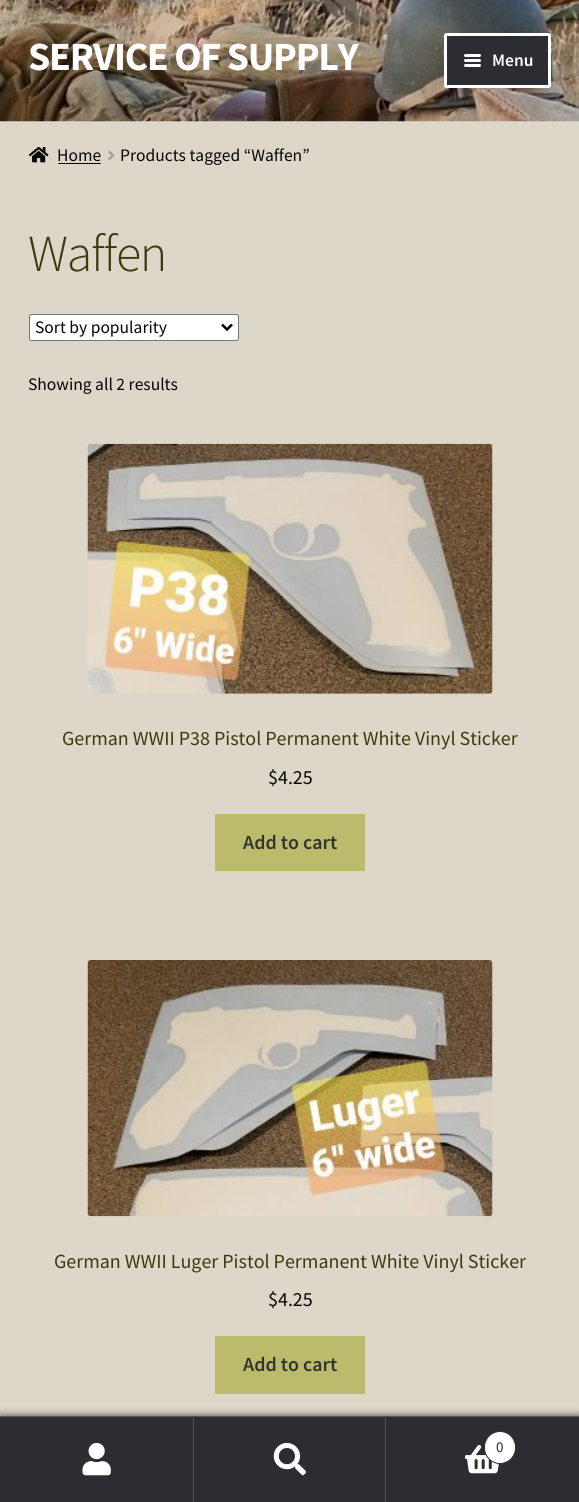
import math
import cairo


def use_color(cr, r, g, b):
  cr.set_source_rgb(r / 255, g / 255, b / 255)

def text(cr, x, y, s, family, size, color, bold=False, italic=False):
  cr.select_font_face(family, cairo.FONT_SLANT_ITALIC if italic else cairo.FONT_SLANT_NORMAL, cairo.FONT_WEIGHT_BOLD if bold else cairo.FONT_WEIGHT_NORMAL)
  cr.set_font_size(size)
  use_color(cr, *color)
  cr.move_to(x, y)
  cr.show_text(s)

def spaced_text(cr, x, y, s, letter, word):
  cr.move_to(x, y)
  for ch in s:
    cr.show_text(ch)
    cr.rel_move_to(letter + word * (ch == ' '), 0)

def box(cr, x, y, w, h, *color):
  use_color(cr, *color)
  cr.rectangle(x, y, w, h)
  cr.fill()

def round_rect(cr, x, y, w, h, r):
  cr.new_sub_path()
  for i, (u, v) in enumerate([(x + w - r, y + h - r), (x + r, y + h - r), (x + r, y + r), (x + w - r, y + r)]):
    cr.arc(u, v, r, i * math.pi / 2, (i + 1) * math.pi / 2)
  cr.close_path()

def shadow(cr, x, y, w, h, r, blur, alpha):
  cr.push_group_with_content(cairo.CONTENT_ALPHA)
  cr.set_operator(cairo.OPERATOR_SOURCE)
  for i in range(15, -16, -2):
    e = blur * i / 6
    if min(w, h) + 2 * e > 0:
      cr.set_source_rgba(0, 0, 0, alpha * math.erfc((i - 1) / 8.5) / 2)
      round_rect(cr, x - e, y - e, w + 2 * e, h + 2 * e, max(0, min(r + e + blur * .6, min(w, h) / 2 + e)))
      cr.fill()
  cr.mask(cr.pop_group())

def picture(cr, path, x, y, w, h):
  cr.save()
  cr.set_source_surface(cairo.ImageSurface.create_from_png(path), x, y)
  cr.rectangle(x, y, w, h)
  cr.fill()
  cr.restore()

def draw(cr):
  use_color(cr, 221, 215, 201)
  cr.paint()
  picture(cr, "img_01.png", 0, 0, 579, 122)
  use_color(cr, 44, 45, 51)
  round_rect(cr, 445.5, 34.5, 104, 52, 1)
  cr.fill_preserve()
  use_color(cr, 255, 255, 255)
  cr.set_line_width(3)
  cr.stroke()
  round_rect(cr, 464, 54, 17, 3, 1.5)
  cr.fill()
  round_rect(cr, 464, 59, 17, 3, 1.5)
  cr.fill()
  round_rect(cr, 464, 64, 17, 3, 1.5)
  cr.fill()
  picture(cr, "img_02.png", 28, 147, 21, 16)
  box(cr, 58, 163, 43, 1, 5, 5, 5)
  picture(cr, "img_03.png", 108, 150, 7, 10)
  use_color(cr, 255, 255, 255)
  round_rect(cr, 29.5, 314.5, 209, 26, 2)
  cr.fill_preserve()
  use_color(cr, 118, 118, 118)
  cr.set_line_width(1)
  cr.stroke()
  cr.new_path()
  cr.move_to(222, 324.5)
  cr.line_to(227, 329.5)
  cr.line_to(232, 324.5)
  use_color(cr, 0, 0, 0)
  cr.set_line_width(2.5)
  cr.stroke()
  picture(cr, "img_04.png", 87, 443, 406, 251)
  box(cr, 215, 814, 150, 57, 187, 188, 107)
  picture(cr, "img_05.png", 87, 960, 406, 257)
  box(cr, 215, 1336, 150, 58, 187, 188, 107)
  use_color(cr, 0, 0, 0)
  shadow(cr, 0, 1416, 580, 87, 0, 4, 0.7)
  box(cr, 0, 1417, 579, 1, 44, 45, 51)
  box(cr, 0, 1416, 579, 1, 86, 87, 92)
  box(cr, 0, 1418, 193, 84, 44, 45, 51)
  box(cr, 193, 1418, 1, 84, 86, 87, 92)
  picture(cr, "img_06.png", 82, 1442, 29, 34)
  box(cr, 194, 1418, 191, 84, 44, 45, 51)
  box(cr, 385, 1418, 1, 84, 86, 87, 92)
  picture(cr, "img_07.png", 273, 1442, 34, 34)
  box(cr, 386, 1418, 193, 84, 44, 45, 51)
  picture(cr, "img_08.png", 465, 1445, 34, 29)
  use_color(cr, 255, 255, 255)
  round_rect(cr, 484.5, 1431.5, 31, 32, 15.5)
  cr.fill_preserve()
  use_color(cr, 44, 45, 51)
  cr.set_line_width(1)
  cr.stroke()
  cr.select_font_face("Source Sans Pro", cairo.FONT_SLANT_NORMAL, cairo.FONT_WEIGHT_BOLD)
  cr.set_font_size(40)
  use_color(cr, 255, 255, 255)
  spaced_text(cr, 28, 70, "SERVICE OF SUPPLY", -1.25, 0)
  text(cr, 492, 66, "Menu", "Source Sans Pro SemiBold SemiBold", 17.5, (255, 255, 255))
  text(cr, 57, 161, "Home", "Source Sans Pro", 17.5, (5, 5, 5))
  text(cr, 120, 161, "Products tagged “Waffen”", "Source Sans Pro", 17.5, (5, 5, 5))
  cr.select_font_face("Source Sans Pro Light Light")
  cr.set_font_size(52)
  use_color(cr, 61, 57, 15)
  spaced_text(cr, 28, 271, "Waffen", -1.25, 0)
  text(cr, 35, 333, "Sort by popularity", "Source Sans Pro", 17.5, (5, 5, 5))
  text(cr, 28, 390, "Showing all 2 results", "Source Sans Pro", 17.5, (5, 5, 5))
  text(cr, 62, 745, "German WWII P38 Pistol Permanent White Vinyl Sticker", "Source Sans Pro", 20, (61, 57, 15))
  text(cr, 268, 784, "$4.25", "Source Sans Pro", 20, (5, 5, 5))
  text(cr, 243, 849, "Add to cart", "Source Sans Pro SemiBold SemiBold", 20, (51, 51, 51))
  text(cr, 54, 1268, "German WWII Luger Pistol Permanent White Vinyl Sticker", "Source Sans Pro", 20, (61, 57, 15))
  text(cr, 268, 1306, "$4.25", "Source Sans Pro", 20, (5, 5, 5))
  text(cr, 243, 1371, "Add to cart", "Source Sans Pro SemiBold SemiBold", 20, (51, 51, 51))
  text(cr, 496, 1452, "0", "Source Sans Pro", 15, (44, 45, 51))


surface = cairo.ImageSurface(cairo.FORMAT_RGB24, 579, 1502)
cr = cairo.Context(surface)
options = cairo.FontOptions()
options.set_hint_metrics(cairo.HINT_METRICS_OFF)
options.set_hint_style(cairo.HINT_STYLE_NONE)
cr.set_font_options(options)
cr.set_miter_limit(4)
draw(cr)
surface.write_to_png("out.png")
